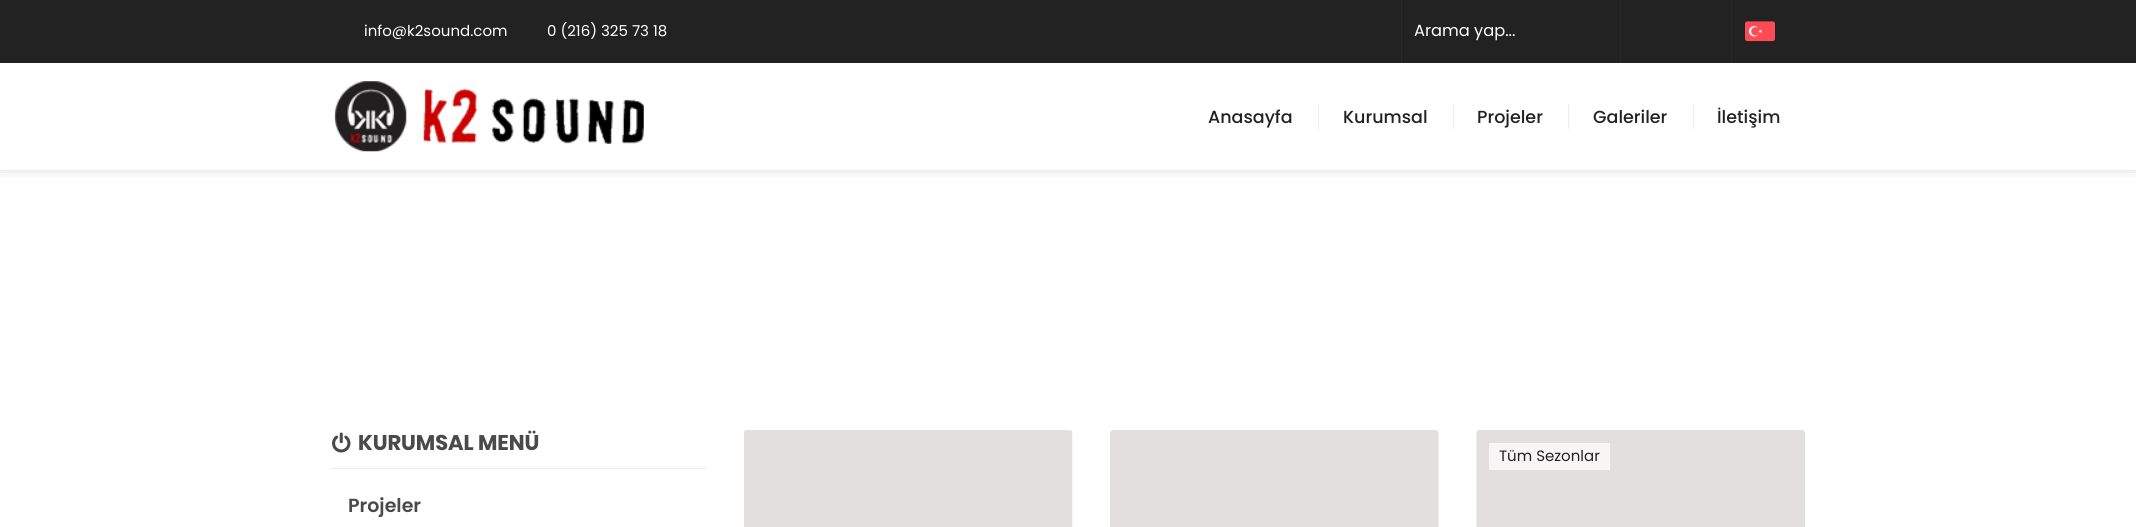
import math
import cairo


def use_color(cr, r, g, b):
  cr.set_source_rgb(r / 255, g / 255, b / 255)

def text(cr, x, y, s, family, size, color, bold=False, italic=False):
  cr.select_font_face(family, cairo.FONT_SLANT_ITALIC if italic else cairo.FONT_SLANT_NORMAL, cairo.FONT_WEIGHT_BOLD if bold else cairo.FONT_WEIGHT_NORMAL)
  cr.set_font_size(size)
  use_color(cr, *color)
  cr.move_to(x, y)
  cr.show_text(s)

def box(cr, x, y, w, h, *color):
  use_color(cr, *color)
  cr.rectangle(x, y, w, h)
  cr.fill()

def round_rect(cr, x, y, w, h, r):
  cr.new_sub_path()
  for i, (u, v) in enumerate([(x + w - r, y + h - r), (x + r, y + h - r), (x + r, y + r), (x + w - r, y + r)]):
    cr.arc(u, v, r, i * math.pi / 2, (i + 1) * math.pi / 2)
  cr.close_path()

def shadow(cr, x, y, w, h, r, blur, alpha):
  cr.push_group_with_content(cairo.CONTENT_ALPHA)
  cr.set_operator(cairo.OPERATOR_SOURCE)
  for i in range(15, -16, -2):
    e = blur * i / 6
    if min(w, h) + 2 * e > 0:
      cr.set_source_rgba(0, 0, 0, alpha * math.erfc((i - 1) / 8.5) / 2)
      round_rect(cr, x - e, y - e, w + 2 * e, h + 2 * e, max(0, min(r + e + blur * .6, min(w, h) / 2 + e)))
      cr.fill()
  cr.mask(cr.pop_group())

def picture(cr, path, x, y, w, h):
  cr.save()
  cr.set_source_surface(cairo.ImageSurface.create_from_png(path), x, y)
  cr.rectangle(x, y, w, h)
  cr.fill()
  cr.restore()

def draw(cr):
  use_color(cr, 255, 255, 255)
  cr.paint()
  cr.save()
  cr.rectangle(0, 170, 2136, 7)
  cr.clip()
  use_color(cr, 0, 0, 0)
  shadow(cr, 0, 63, 2136, 107, 0, 6, 0.15)
  cr.restore()
  box(cr, 0, 0, 2136, 63, 34, 34, 34)
  box(cr, 1401, 0, 1, 63, 41, 41, 41)
  box(cr, 1620, 0, 1, 63, 41, 41, 41)
  box(cr, 1731, 0, 1, 63, 41, 41, 41)
  picture(cr, "img_01.png", 1745, 21, 30, 21)
  picture(cr, "img_02.png", 334, 81, 310, 71)
  box(cr, 1318, 104, 1, 25, 237, 237, 237)
  box(cr, 1453, 104, 1, 25, 237, 237, 237)
  box(cr, 1568, 104, 1, 25, 237, 237, 237)
  box(cr, 1693, 104, 1, 25, 237, 237, 237)
  box(cr, 331, 468, 375, 1, 237, 237, 237)
  picture(cr, "img_03.png", 332, 432, 19, 21)
  picture(cr, "img_04.png", 744, 430, 329, 97)
  picture(cr, "img_05.png", 1110, 430, 329, 97)
  picture(cr, "img_06.png", 1476, 430, 329, 97)
  box(cr, 1489, 443, 121, 27, 247, 245, 245)
  text(cr, 364, 36, "info@k2sound.com", "Poppins", 15, (255, 255, 255))
  text(cr, 547, 36, "0 (216) 325 73 18", "Poppins", 15, (255, 255, 255))
  text(cr, 1414, 36, "Arama yap...", "Poppins", 16.25, (255, 255, 255))
  text(cr, 1208, 123, "Anasayfa", "Poppins Medium", 17.5, (34, 34, 34))
  text(cr, 1343, 123, "Kurumsal", "Poppins Medium", 17.5, (34, 34, 34))
  text(cr, 1477, 123, "Projeler", "Poppins Medium", 17.5, (34, 34, 34))
  text(cr, 1593, 123, "Galeriler", "Poppins Medium", 17.5, (34, 34, 34))
  text(cr, 1717, 123, "İletişim", "Poppins Medium", 17.5, (34, 34, 34))
  text(cr, 358, 450, "KURUMSAL MENÜ", "Poppins", 21.25, (74, 74, 74), bold=True)
  text(cr, 348, 512, "Projeler", "Poppins SemiBold", 19, (74, 74, 74))
  text(cr, 1499, 461, "Tüm Sezonlar", "Poppins", 15, (34, 34, 34))


surface = cairo.ImageSurface(cairo.FORMAT_RGB24, 2136, 527)
cr = cairo.Context(surface)
options = cairo.FontOptions()
options.set_hint_metrics(cairo.HINT_METRICS_OFF)
options.set_hint_style(cairo.HINT_STYLE_NONE)
cr.set_font_options(options)
cr.set_miter_limit(4)
draw(cr)
surface.write_to_png("out.png")
